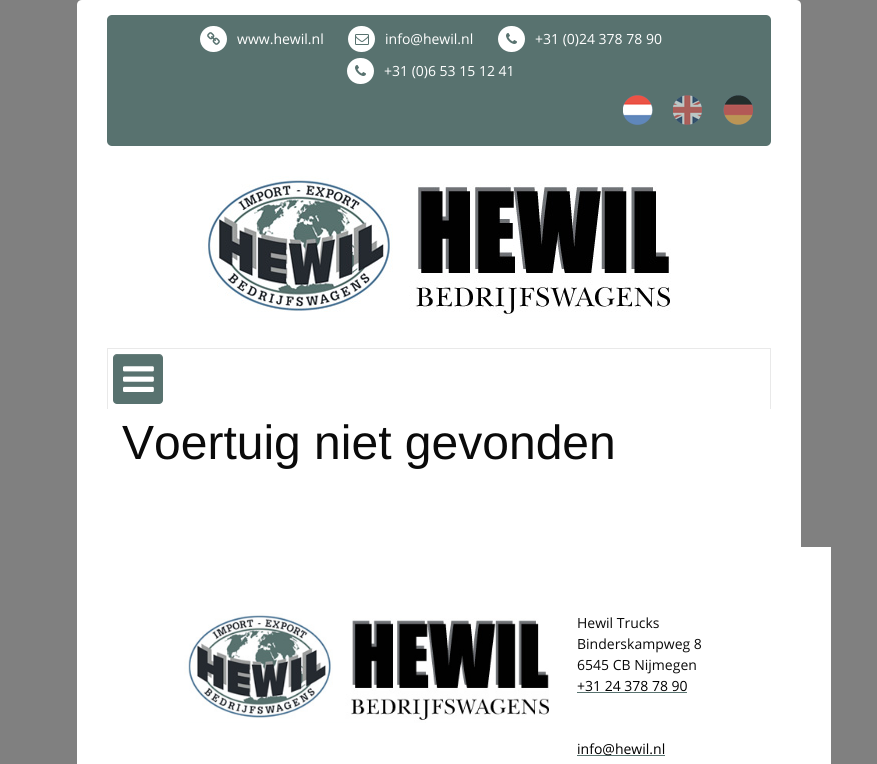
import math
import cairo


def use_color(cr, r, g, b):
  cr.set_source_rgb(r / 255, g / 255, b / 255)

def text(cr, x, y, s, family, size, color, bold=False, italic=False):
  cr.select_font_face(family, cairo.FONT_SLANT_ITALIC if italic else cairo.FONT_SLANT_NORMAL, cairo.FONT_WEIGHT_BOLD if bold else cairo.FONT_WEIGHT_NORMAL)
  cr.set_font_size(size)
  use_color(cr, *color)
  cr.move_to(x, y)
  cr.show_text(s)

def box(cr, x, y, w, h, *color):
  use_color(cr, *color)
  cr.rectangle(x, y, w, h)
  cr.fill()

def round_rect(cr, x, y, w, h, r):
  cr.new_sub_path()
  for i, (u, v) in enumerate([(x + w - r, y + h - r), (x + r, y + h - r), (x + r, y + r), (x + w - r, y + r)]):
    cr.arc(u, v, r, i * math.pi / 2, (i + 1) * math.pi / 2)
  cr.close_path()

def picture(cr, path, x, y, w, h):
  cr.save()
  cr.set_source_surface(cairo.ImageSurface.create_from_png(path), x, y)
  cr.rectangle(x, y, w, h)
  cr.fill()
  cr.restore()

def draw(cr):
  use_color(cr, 128, 128, 128)
  cr.paint()
  use_color(cr, 255, 255, 255)
  cr.new_path()
  cr.move_to(82, 0)
  cr.line_to(796, 0)
  cr.curve_to(799, 0, 801, 2, 801, 5)
  cr.line_to(801, 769)
  cr.line_to(77, 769)
  cr.line_to(77, 5)
  cr.curve_to(77, 2, 79, 0, 82, 0)
  cr.close_path()
  cr.fill()
  use_color(cr, 88, 114, 111)
  round_rect(cr, 107, 15, 664, 131, 5)
  cr.fill()
  use_color(cr, 255, 255, 255)
  round_rect(cr, 200, 26, 27, 26, 13)
  cr.fill()
  picture(cr, "img_01.png", 207, 32, 13, 13)
  round_rect(cr, 348, 26, 27, 26, 13)
  cr.fill()
  picture(cr, "img_02.png", 355, 34, 14, 11)
  round_rect(cr, 498, 26, 27, 26, 13)
  cr.fill()
  picture(cr, "img_03.png", 506, 33, 11, 11)
  round_rect(cr, 347, 58, 27, 26, 13)
  cr.fill()
  picture(cr, "img_03.png", 355, 65, 11, 11)
  picture(cr, "img_04.png", 623, 95, 30, 30)
  picture(cr, "img_05.png", 673, 95, 29, 30)
  picture(cr, "img_06.png", 723, 95, 30, 30)
  picture(cr, "img_07.png", 202, 176, 469, 142)
  box(cr, 107, 348, 664, 1, 233, 233, 233)
  box(cr, 770, 348, 1, 61, 233, 233, 233)
  box(cr, 107, 348, 1, 61, 233, 233, 233)
  use_color(cr, 88, 114, 111)
  round_rect(cr, 113, 354, 50, 50, 4)
  cr.fill()
  cr.set_source_rgba(1, 1, 1, 0.1)
  cr.new_path()
  cr.move_to(117, 355)
  cr.line_to(159, 355)
  cr.curve_to(161, 355, 163, 357, 163, 359)
  cr.curve_to(163, 353, 157, 354, 152, 354)
  cr.line_to(124, 354)
  cr.curve_to(119, 354, 113, 353, 113, 359)
  cr.curve_to(113, 357, 115, 355, 117, 355)
  cr.close_path()
  cr.fill()
  picture(cr, "img_08.png", 123, 366, 31, 26)
  box(cr, 801, 547, 30, 217, 255, 255, 255)
  picture(cr, "img_09.png", 184, 613, 365, 110)
  box(cr, 577, 692, 110, 1, 88, 114, 111)
  box(cr, 577, 755, 88, 1, 88, 114, 111)
  text(cr, 237, 44, "www.hewil.nl", "Open Sans", 14, (255, 255, 255))
  text(cr, 385, 44, "info@hewil.nl", "Open Sans", 14, (255, 255, 255))
  text(cr, 535, 44, "+31 (0)24 378 78 90", "Open Sans", 14, (255, 255, 255))
  text(cr, 384, 76, "+31 (0)6 53 15 12 41", "Open Sans", 14, (255, 255, 255))
  text(cr, 122, 459, "Voertuig niet gevonden", "Liberation Sans", 48, (10, 10, 10))
  text(cr, 577, 628, "Hewil Trucks", "Open Sans", 14, (10, 10, 10))
  text(cr, 577, 649, "Binderskampweg 8", "Open Sans", 14, (10, 10, 10))
  text(cr, 577, 670, "6545 CB Nijmegen", "Open Sans", 14, (10, 10, 10))
  text(cr, 577, 691, "+31 24 378 78 90", "Open Sans", 14, (0, 0, 0))
  text(cr, 577, 754, "info@hewil.nl", "Open Sans", 14, (0, 0, 0))


surface = cairo.ImageSurface(cairo.FORMAT_RGB24, 877, 764)
cr = cairo.Context(surface)
options = cairo.FontOptions()
options.set_hint_metrics(cairo.HINT_METRICS_OFF)
options.set_hint_style(cairo.HINT_STYLE_NONE)
cr.set_font_options(options)
cr.set_miter_limit(4)
draw(cr)
surface.write_to_png("out.png")
